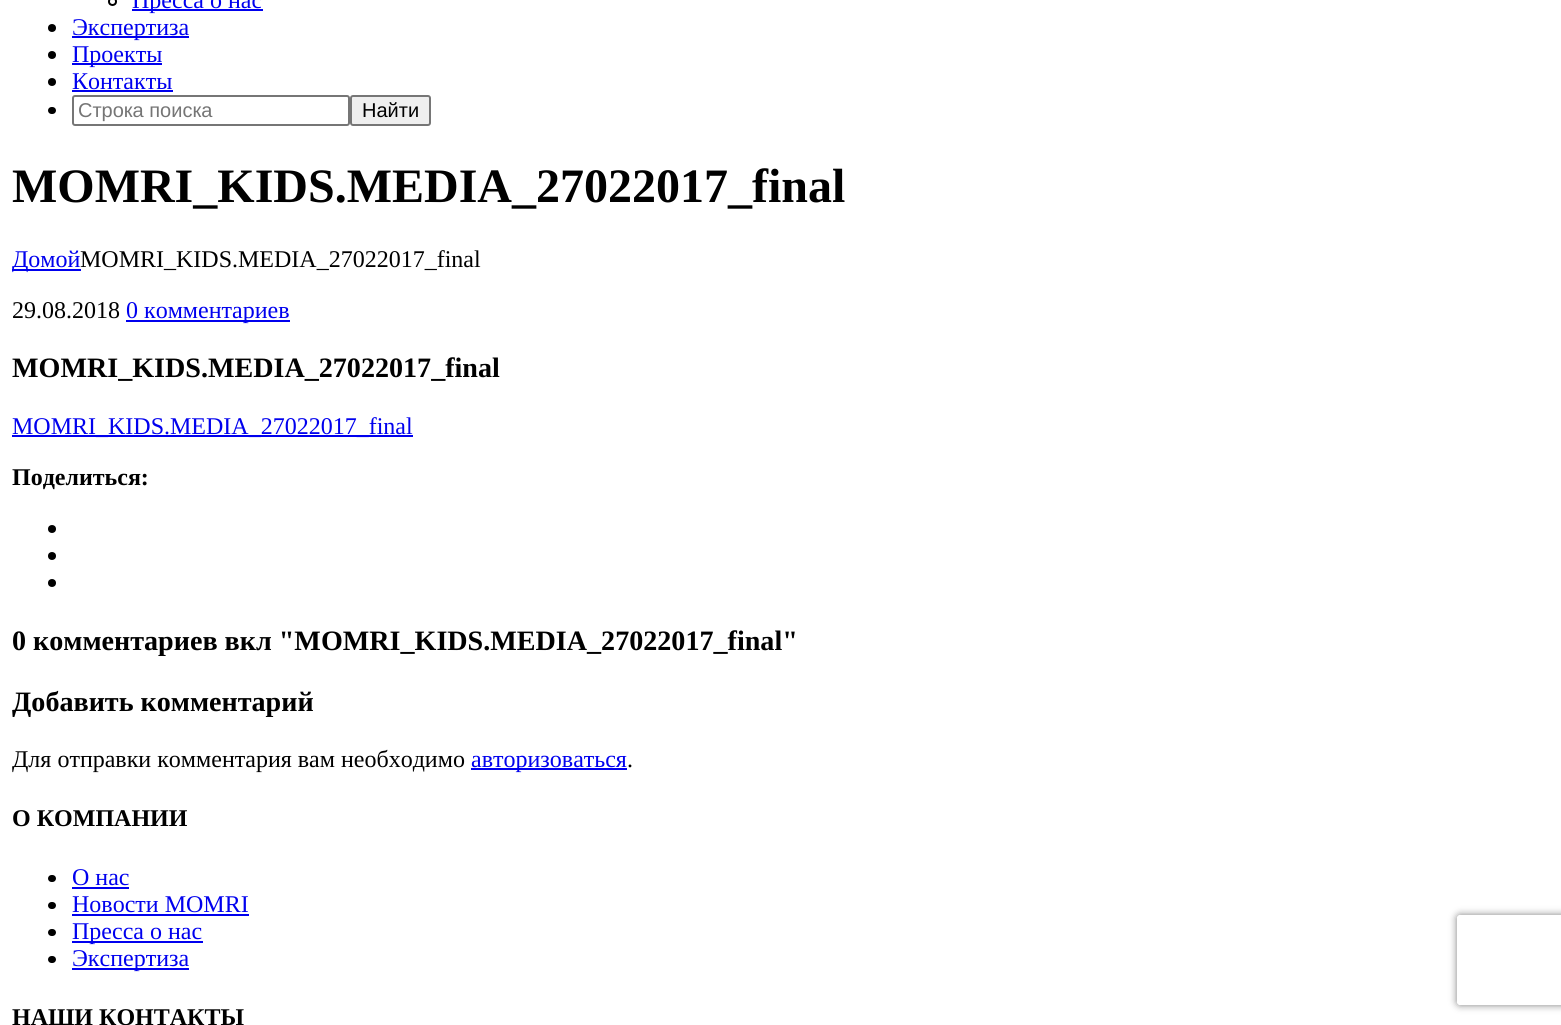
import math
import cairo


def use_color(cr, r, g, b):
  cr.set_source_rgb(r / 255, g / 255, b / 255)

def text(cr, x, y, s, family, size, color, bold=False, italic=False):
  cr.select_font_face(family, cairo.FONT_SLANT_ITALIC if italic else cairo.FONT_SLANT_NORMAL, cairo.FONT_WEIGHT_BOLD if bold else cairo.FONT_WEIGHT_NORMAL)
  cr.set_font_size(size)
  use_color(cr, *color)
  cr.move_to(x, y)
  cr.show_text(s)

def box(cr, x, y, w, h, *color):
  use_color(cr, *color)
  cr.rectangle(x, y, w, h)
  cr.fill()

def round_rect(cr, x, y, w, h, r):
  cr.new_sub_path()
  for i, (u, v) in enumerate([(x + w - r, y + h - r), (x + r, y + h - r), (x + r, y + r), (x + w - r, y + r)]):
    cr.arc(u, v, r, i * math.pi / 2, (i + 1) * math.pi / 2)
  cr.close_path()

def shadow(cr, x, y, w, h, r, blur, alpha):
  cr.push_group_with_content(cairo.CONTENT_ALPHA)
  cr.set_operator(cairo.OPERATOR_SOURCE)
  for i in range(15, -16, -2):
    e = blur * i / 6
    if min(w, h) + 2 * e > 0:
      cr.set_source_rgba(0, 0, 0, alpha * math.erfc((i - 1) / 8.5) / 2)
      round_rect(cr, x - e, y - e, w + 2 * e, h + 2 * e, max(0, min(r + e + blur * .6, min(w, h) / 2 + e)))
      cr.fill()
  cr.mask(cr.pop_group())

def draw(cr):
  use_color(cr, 255, 255, 255)
  cr.paint()
  cr.arc(112.5, 1.5, 3.5, 0, 2 * math.pi)
  use_color(cr, 0, 0, 0)
  cr.stroke()
  box(cr, 132, 9, 131, 2, 0, 0, 238)
  use_color(cr, 0, 0, 0)
  cr.arc(52, 28, 4, 0, 2 * math.pi)
  cr.fill()
  box(cr, 72, 36, 117, 2, 0, 0, 238)
  use_color(cr, 0, 0, 0)
  cr.arc(52, 55, 4, 0, 2 * math.pi)
  cr.fill()
  box(cr, 72, 63, 90, 2, 0, 0, 238)
  use_color(cr, 0, 0, 0)
  cr.arc(52, 82, 4, 0, 2 * math.pi)
  cr.fill()
  box(cr, 72, 90, 101, 2, 0, 0, 238)
  use_color(cr, 0, 0, 0)
  round_rect(cr, 48, 107, 8, 7, 3.5)
  cr.fill()
  round_rect(cr, 73, 96, 276, 29, 2)
  use_color(cr, 118, 118, 118)
  cr.stroke()
  use_color(cr, 239, 239, 239)
  round_rect(cr, 351, 96, 79, 29, 2)
  cr.fill_preserve()
  use_color(cr, 118, 118, 118)
  cr.stroke()
  box(cr, 12, 269, 69, 2, 0, 0, 238)
  box(cr, 126, 320, 164, 2, 0, 0, 238)
  box(cr, 12, 435, 401, 2, 0, 0, 238)
  use_color(cr, 0, 0, 0)
  cr.arc(52, 529, 4, 0, 2 * math.pi)
  cr.fill()
  cr.arc(52, 556, 4, 0, 2 * math.pi)
  cr.fill()
  cr.arc(52, 583, 4, 0, 2 * math.pi)
  cr.fill()
  box(cr, 471, 768, 156, 2, 0, 0, 238)
  use_color(cr, 0, 0, 0)
  round_rect(cr, 48, 875, 8, 7, 3.5)
  cr.fill()
  box(cr, 72, 887, 57, 2, 0, 0, 238)
  use_color(cr, 0, 0, 0)
  round_rect(cr, 48, 902, 8, 7, 3.5)
  cr.fill()
  box(cr, 72, 914, 177, 2, 0, 0, 238)
  use_color(cr, 0, 0, 0)
  round_rect(cr, 48, 929, 8, 7, 3.5)
  cr.fill()
  box(cr, 72, 941, 131, 2, 0, 0, 238)
  use_color(cr, 0, 0, 0)
  round_rect(cr, 48, 956, 8, 7, 3.5)
  cr.fill()
  box(cr, 72, 968, 117, 2, 0, 0, 238)
  cr.save()
  cr.set_fill_rule(cairo.FILL_RULE_EVEN_ODD)
  cr.new_path()
  cr.move_to(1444, 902)
  cr.line_to(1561, 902)
  cr.line_to(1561, 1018)
  cr.line_to(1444, 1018)
  cr.close_path()
  cr.move_to(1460, 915)
  cr.line_to(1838, 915)
  cr.curve_to(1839.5, 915, 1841, 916.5, 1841, 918)
  cr.line_to(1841, 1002)
  cr.curve_to(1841, 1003.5, 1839.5, 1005, 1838, 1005)
  cr.line_to(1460, 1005)
  cr.curve_to(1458.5, 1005, 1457, 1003.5, 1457, 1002)
  cr.line_to(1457, 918)
  cr.curve_to(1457, 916.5, 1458.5, 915, 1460, 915)
  cr.close_path()
  cr.clip()
  use_color(cr, 128, 128, 128)
  shadow(cr, 1457, 915, 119, 90, 3, 4, 1)
  cr.restore()
  text(cr, 132, 8, "Пресса о нас", "Liberation Serif", 24, (0, 0, 238))
  text(cr, 72, 35, "Экспертиза", "Liberation Serif", 24, (0, 0, 238))
  text(cr, 72, 62, "Проекты", "Liberation Serif", 24, (0, 0, 238))
  text(cr, 72, 89, "Контакты", "Liberation Serif", 24, (0, 0, 238))
  text(cr, 78, 117, "Строка поиска", "Liberation Sans", 20, (117, 117, 117))
  text(cr, 362, 117, "Найти", "Liberation Sans", 20, (0, 0, 0))
  text(cr, 12, 202, "MOMRI_KIDS.MEDIA_27022017_final", "Liberation Serif", 48, (0, 0, 0), bold=True)
  text(cr, 12, 267, "Домой", "Liberation Serif", 24, (0, 0, 238))
  text(cr, 80, 267, "MOMRI_KIDS.MEDIA_27022017_final", "Liberation Serif", 24, (0, 0, 0))
  text(cr, 12, 318, "29.08.2018", "Liberation Serif", 24, (0, 0, 0))
  text(cr, 126, 318, "0 комментариев", "Liberation Serif", 24, (0, 0, 238))
  text(cr, 12, 377, "MOMRI_KIDS.MEDIA_27022017_final", "Liberation Serif", 28.1, (0, 0, 0), bold=True)
  text(cr, 12, 434, "MOMRI_KIDS.MEDIA_27022017_final", "Liberation Serif", 24, (0, 0, 238))
  text(cr, 12, 485, "Поделиться:", "Liberation Serif", 24, (0, 0, 0), bold=True)
  text(cr, 12, 650, "0 комментариев вкл \"MOMRI_KIDS.MEDIA_27022017_final\"", "Liberation Serif", 28.1, (0, 0, 0), bold=True)
  text(cr, 12, 711, "Добавить комментарий", "Liberation Serif", 28.1, (0, 0, 0), bold=True)
  text(cr, 12, 767, "Для отправки комментария вам необходимо", "Liberation Serif", 24, (0, 0, 0))
  text(cr, 471, 767, "авторизоваться", "Liberation Serif", 24, (0, 0, 238))
  text(cr, 627, 767, ".", "Liberation Serif", 24, (0, 0, 0))
  text(cr, 12, 826, "О КОМПАНИИ", "Liberation Serif", 24, (0, 0, 0), bold=True)
  text(cr, 72, 885, "О нас", "Liberation Serif", 24, (0, 0, 238))
  text(cr, 72, 912, "Новости MOMRI", "Liberation Serif", 24, (0, 0, 238))
  text(cr, 72, 939, "Пресса о нас", "Liberation Serif", 24, (0, 0, 238))
  text(cr, 72, 966, "Экспертиза", "Liberation Serif", 24, (0, 0, 238))
  text(cr, 12, 1025, "НАШИ КОНТАКТЫ", "Liberation Serif", 24, (0, 0, 0), bold=True)


surface = cairo.ImageSurface(cairo.FORMAT_RGB24, 1561, 1025)
cr = cairo.Context(surface)
options = cairo.FontOptions()
options.set_hint_metrics(cairo.HINT_METRICS_OFF)
options.set_hint_style(cairo.HINT_STYLE_NONE)
cr.set_font_options(options)
cr.set_miter_limit(4)
draw(cr)
surface.write_to_png("out.png")
